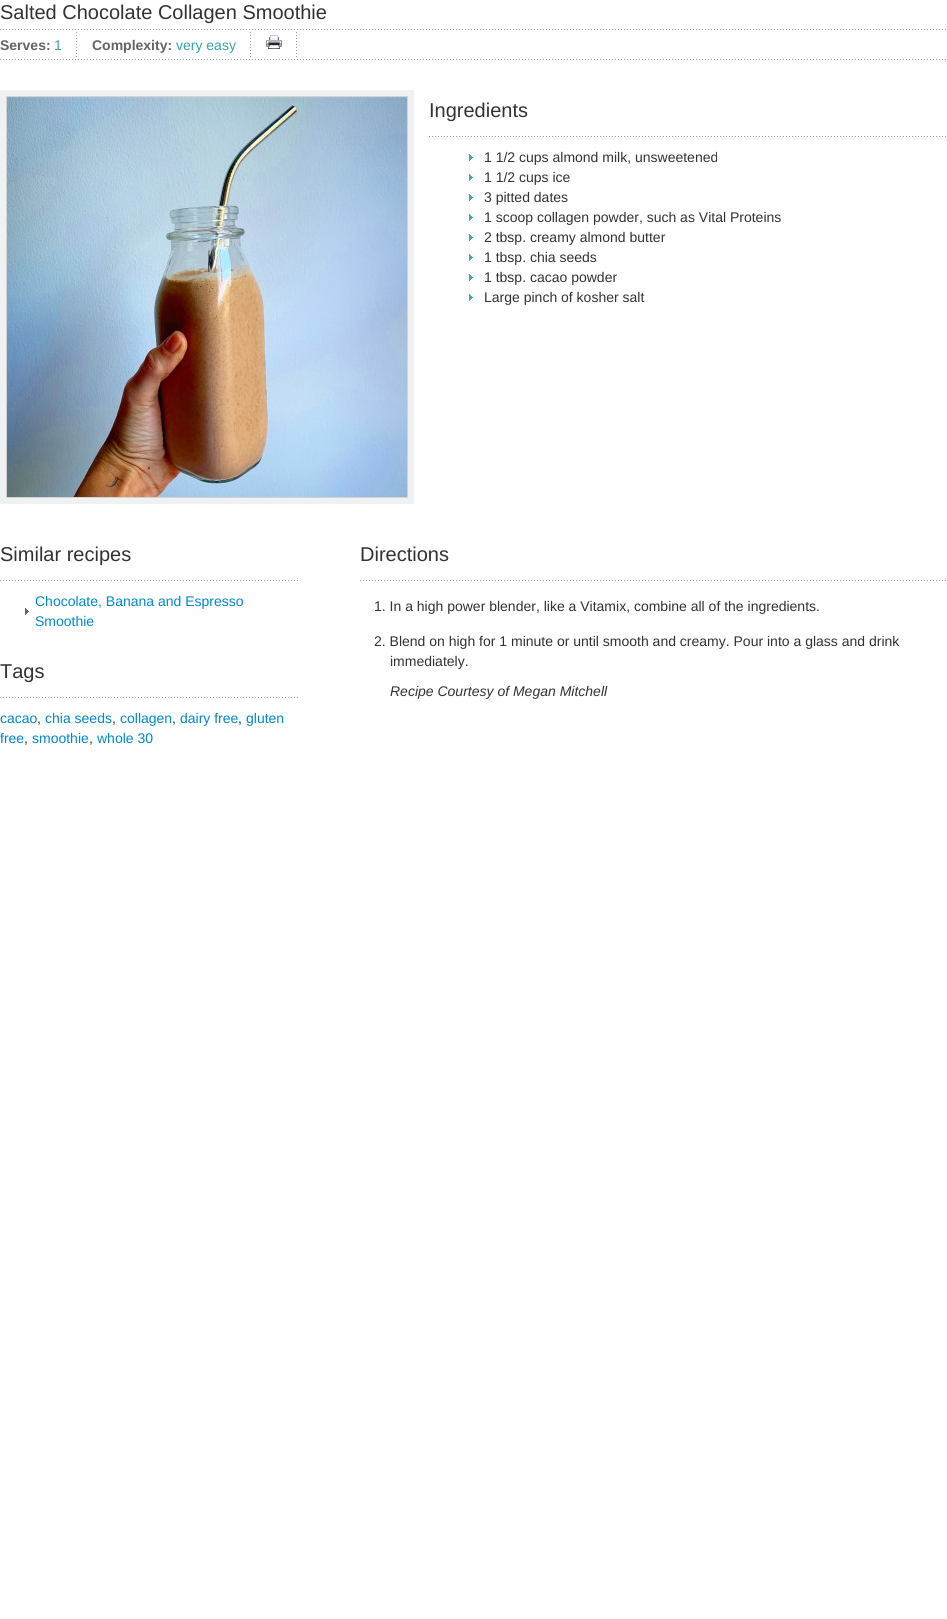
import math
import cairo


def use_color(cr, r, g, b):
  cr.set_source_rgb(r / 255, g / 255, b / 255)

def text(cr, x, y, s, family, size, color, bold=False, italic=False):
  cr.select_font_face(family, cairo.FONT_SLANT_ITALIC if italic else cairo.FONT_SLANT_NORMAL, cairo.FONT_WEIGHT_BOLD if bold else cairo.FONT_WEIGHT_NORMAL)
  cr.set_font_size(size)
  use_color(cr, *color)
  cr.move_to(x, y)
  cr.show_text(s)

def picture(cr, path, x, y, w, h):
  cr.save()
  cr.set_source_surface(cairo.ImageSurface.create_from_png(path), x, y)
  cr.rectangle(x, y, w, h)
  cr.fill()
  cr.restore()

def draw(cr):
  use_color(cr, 255, 255, 255)
  cr.paint()
  picture(cr, "img_01.png", 0, 29, 946, 1)
  picture(cr, "img_01.png", 0, 59, 946, 1)
  picture(cr, "img_02.png", 76, 32, 1, 25)
  picture(cr, "img_02.png", 250, 32, 1, 25)
  picture(cr, "img_02.png", 296, 32, 1, 25)
  picture(cr, "img_03.png", 266, 35, 16, 14)
  cr.rectangle(3, 93, 408, 408)
  use_color(cr, 240, 241, 242)
  cr.set_line_width(6)
  cr.stroke()
  cr.rectangle(6.5, 96.5, 401, 401)
  use_color(cr, 210, 211, 212)
  cr.set_line_width(1)
  cr.stroke()
  picture(cr, "img_04.png", 7, 97, 400, 400)
  picture(cr, "img_05.png", 429, 136, 517, 1)
  picture(cr, "img_06.png", 469, 154, 4, 7)
  picture(cr, "img_06.png", 469, 174, 4, 7)
  picture(cr, "img_06.png", 469, 194, 4, 7)
  picture(cr, "img_06.png", 469, 214, 4, 7)
  picture(cr, "img_06.png", 469, 234, 4, 7)
  picture(cr, "img_06.png", 469, 254, 4, 7)
  picture(cr, "img_06.png", 469, 274, 4, 7)
  picture(cr, "img_06.png", 469, 294, 4, 7)
  picture(cr, "img_07.png", 0, 580, 298, 1)
  picture(cr, "img_08.png", 25, 608, 4, 7)
  picture(cr, "img_07.png", 0, 697, 298, 1)
  picture(cr, "img_09.png", 360, 580, 586, 1)
  text(cr, 0, 19, "Salted Chocolate Collagen Smoothie", "Liberation Sans", 20, (50, 50, 50))
  text(cr, 0, 50, "Serves:", "Liberation Sans", 14, (100, 100, 100), bold=True)
  text(cr, 54, 50, "1", "Liberation Sans", 14, (57, 159, 177))
  text(cr, 92, 50, "Complexity:", "Liberation Sans", 14, (100, 100, 100), bold=True)
  text(cr, 176, 50, "very easy", "Liberation Sans", 14, (57, 159, 177))
  text(cr, 429, 117, "Ingredients", "Liberation Sans", 20, (50, 50, 50))
  text(cr, 484, 162, "1 1/2 cups almond milk, unsweetened", "Liberation Sans", 14, (50, 50, 50))
  text(cr, 484, 182, "1 1/2 cups ice", "Liberation Sans", 14, (50, 50, 50))
  text(cr, 484, 202, "3 pitted dates", "Liberation Sans", 14, (50, 50, 50))
  text(cr, 484, 222, "1 scoop collagen powder, such as Vital Proteins", "Liberation Sans", 14, (50, 50, 50))
  text(cr, 484, 242, "2 tbsp. creamy almond butter", "Liberation Sans", 14, (50, 50, 50))
  text(cr, 484, 262, "1 tbsp. chia seeds", "Liberation Sans", 14, (50, 50, 50))
  text(cr, 484, 282, "1 tbsp. cacao powder", "Liberation Sans", 14, (50, 50, 50))
  text(cr, 484, 302, "Large pinch of kosher salt", "Liberation Sans", 14, (50, 50, 50))
  text(cr, 0, 561, "Similar recipes", "Liberation Sans", 20, (50, 50, 50))
  text(cr, 35, 606, "Chocolate, Banana and Espresso", "Liberation Sans", 14, (0, 136, 204))
  text(cr, 35, 626, "Smoothie", "Liberation Sans", 14, (0, 136, 204))
  text(cr, 0, 678, "Tags", "Liberation Sans", 20, (50, 50, 50))
  text(cr, 0, 723, "cacao", "Liberation Sans", 14, (0, 136, 204))
  text(cr, 37, 723, ",", "Liberation Sans", 14, (50, 50, 50))
  text(cr, 45, 723, "chia seeds", "Liberation Sans", 14, (0, 136, 204))
  text(cr, 112, 723, ",", "Liberation Sans", 14, (50, 50, 50))
  text(cr, 120, 723, "collagen", "Liberation Sans", 14, (0, 136, 204))
  text(cr, 172, 723, ",", "Liberation Sans", 14, (50, 50, 50))
  text(cr, 180, 723, "dairy free", "Liberation Sans", 14, (0, 136, 204))
  text(cr, 238, 723, ",", "Liberation Sans", 14, (50, 50, 50))
  text(cr, 246, 723, "gluten", "Liberation Sans", 14, (0, 136, 204))
  text(cr, 0, 743, "free", "Liberation Sans", 14, (0, 136, 204))
  text(cr, 24, 743, ",", "Liberation Sans", 14, (50, 50, 50))
  text(cr, 32, 743, "smoothie", "Liberation Sans", 14, (0, 136, 204))
  text(cr, 89, 743, ",", "Liberation Sans", 14, (50, 50, 50))
  text(cr, 97, 743, "whole 30", "Liberation Sans", 14, (0, 136, 204))
  text(cr, 360, 561, "Directions", "Liberation Sans", 20, (50, 50, 50))
  text(cr, 374, 611, "1. In a high power blender, like a Vitamix, combine all of the ingredients.", "Liberation Sans", 14, (50, 50, 50))
  text(cr, 374, 646, "2. Blend on high for 1 minute or until smooth and creamy. Pour into a glass and drink", "Liberation Sans", 14, (50, 50, 50))
  text(cr, 390, 666, "immediately.", "Liberation Sans", 14, (50, 50, 50))
  text(cr, 390, 696, "Recipe Courtesy of Megan Mitchell", "Liberation Sans", 14, (50, 50, 50), italic=True)


surface = cairo.ImageSurface(cairo.FORMAT_RGB24, 947, 1619)
cr = cairo.Context(surface)
options = cairo.FontOptions()
options.set_hint_metrics(cairo.HINT_METRICS_OFF)
options.set_hint_style(cairo.HINT_STYLE_NONE)
cr.set_font_options(options)
cr.set_miter_limit(4)
draw(cr)
surface.write_to_png("out.png")
